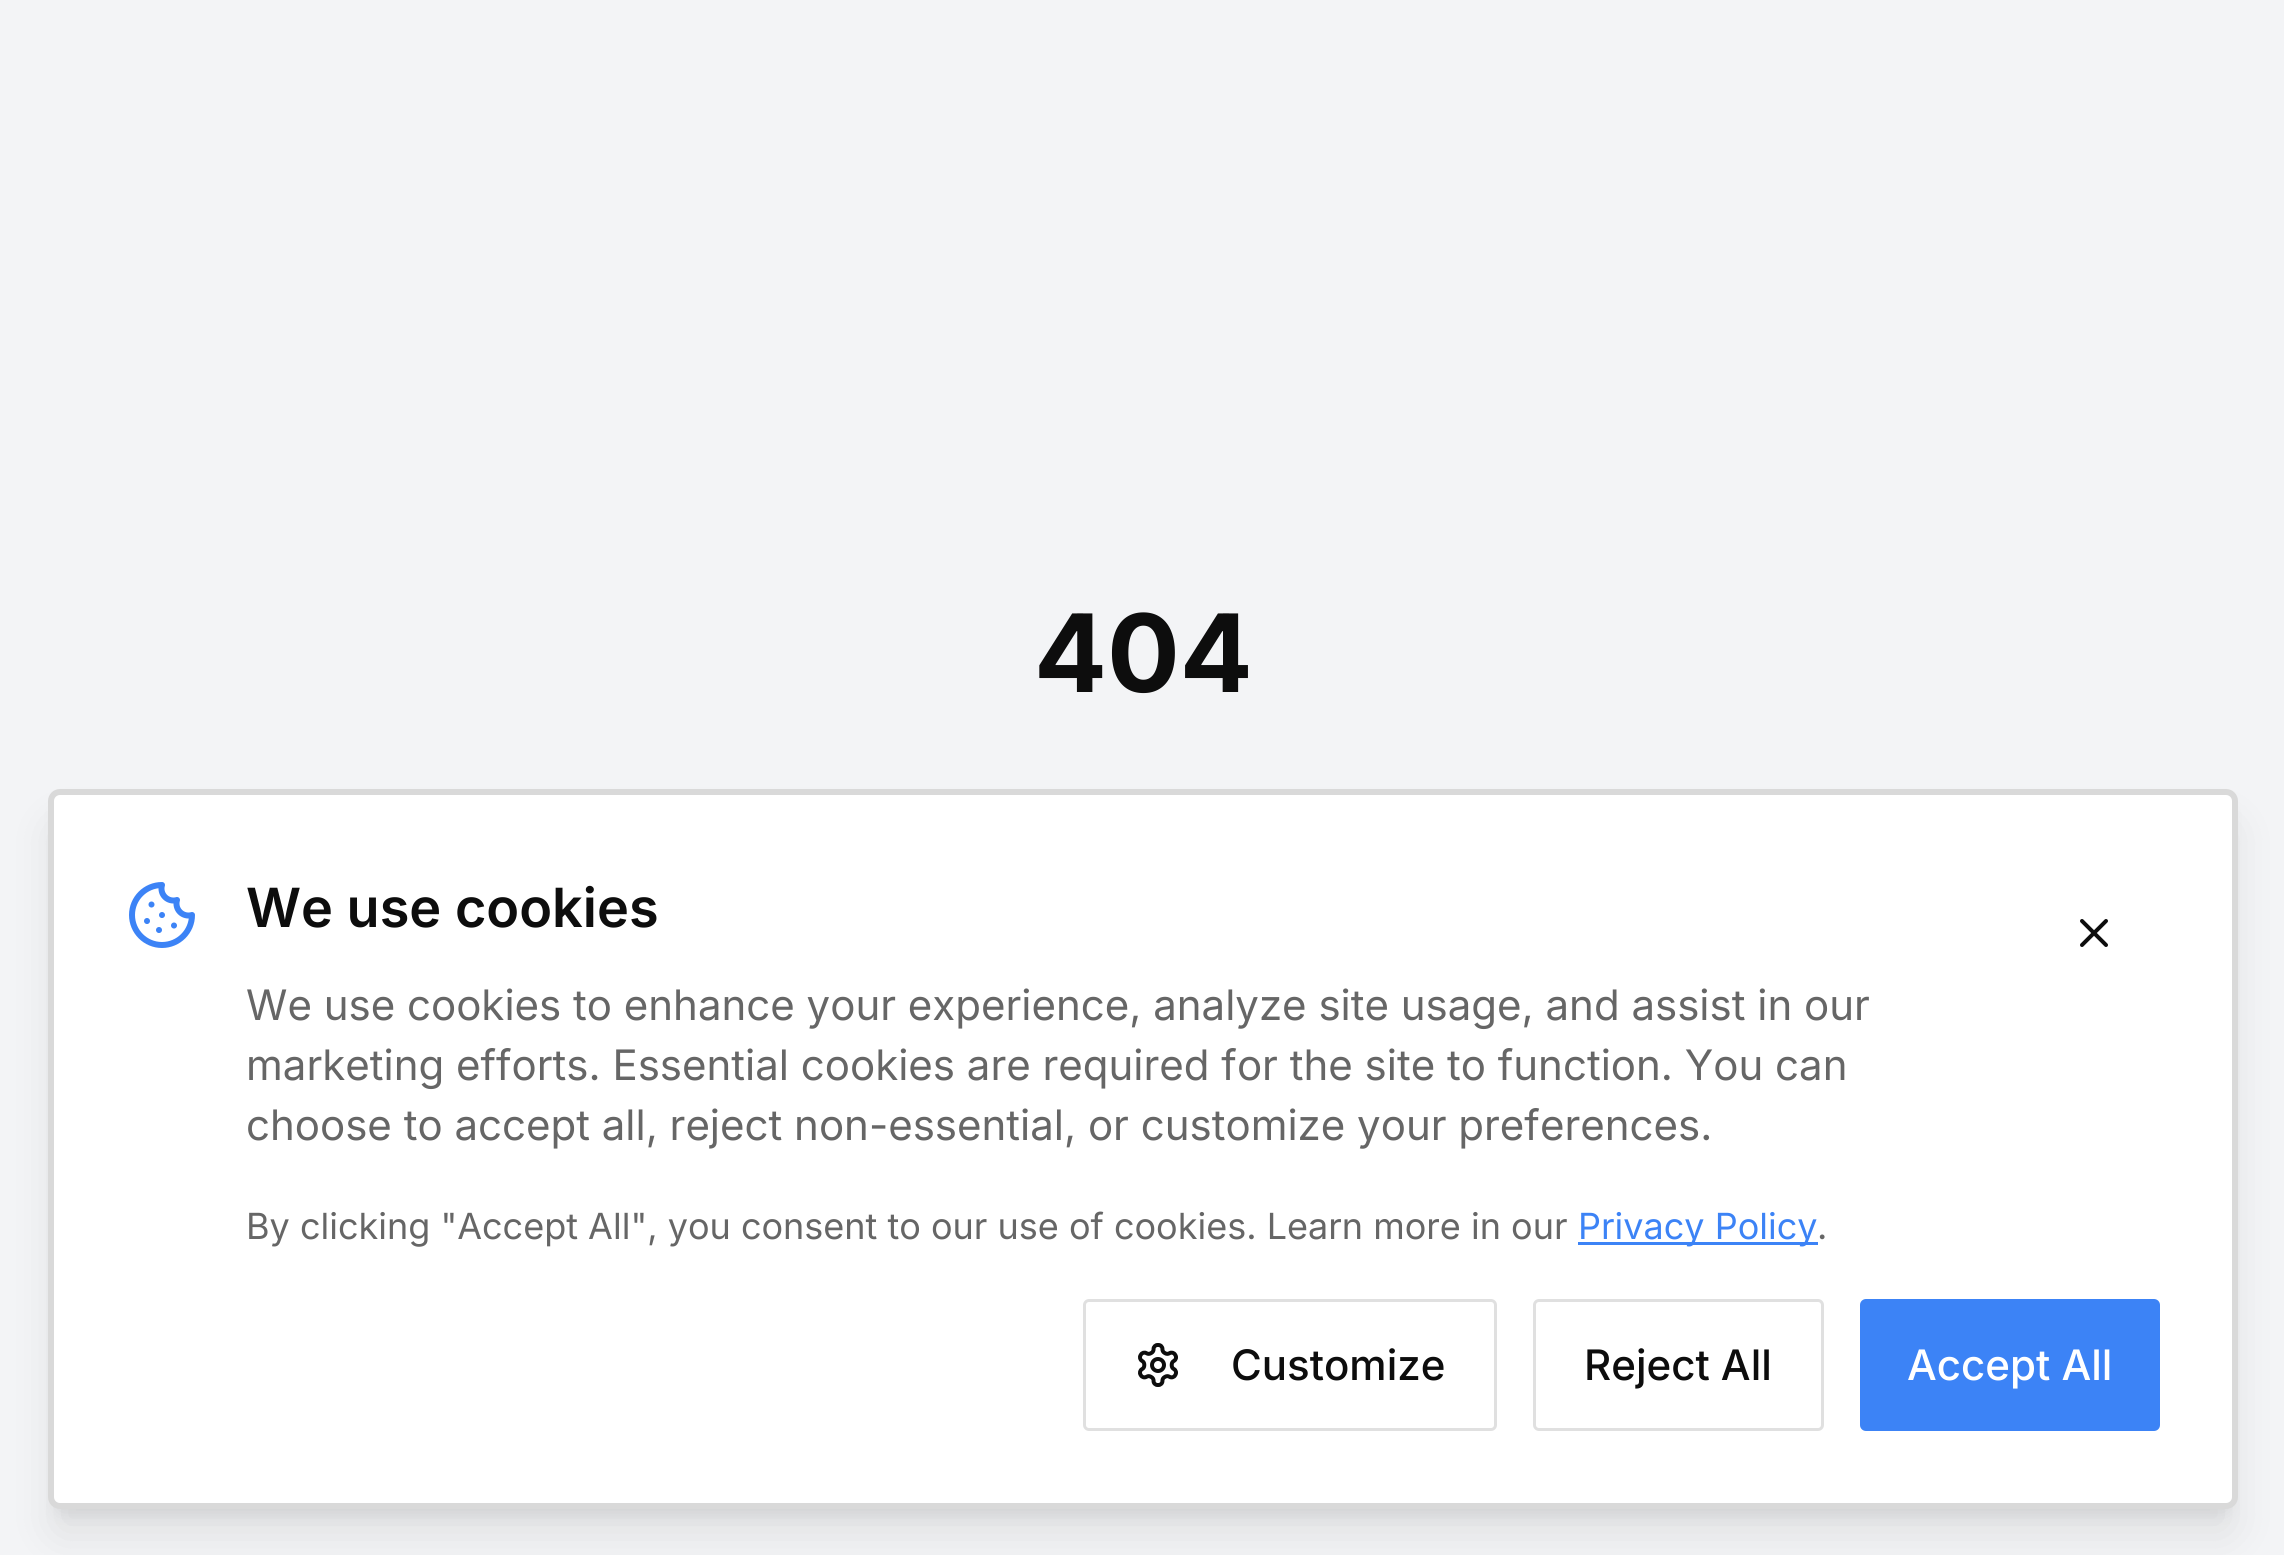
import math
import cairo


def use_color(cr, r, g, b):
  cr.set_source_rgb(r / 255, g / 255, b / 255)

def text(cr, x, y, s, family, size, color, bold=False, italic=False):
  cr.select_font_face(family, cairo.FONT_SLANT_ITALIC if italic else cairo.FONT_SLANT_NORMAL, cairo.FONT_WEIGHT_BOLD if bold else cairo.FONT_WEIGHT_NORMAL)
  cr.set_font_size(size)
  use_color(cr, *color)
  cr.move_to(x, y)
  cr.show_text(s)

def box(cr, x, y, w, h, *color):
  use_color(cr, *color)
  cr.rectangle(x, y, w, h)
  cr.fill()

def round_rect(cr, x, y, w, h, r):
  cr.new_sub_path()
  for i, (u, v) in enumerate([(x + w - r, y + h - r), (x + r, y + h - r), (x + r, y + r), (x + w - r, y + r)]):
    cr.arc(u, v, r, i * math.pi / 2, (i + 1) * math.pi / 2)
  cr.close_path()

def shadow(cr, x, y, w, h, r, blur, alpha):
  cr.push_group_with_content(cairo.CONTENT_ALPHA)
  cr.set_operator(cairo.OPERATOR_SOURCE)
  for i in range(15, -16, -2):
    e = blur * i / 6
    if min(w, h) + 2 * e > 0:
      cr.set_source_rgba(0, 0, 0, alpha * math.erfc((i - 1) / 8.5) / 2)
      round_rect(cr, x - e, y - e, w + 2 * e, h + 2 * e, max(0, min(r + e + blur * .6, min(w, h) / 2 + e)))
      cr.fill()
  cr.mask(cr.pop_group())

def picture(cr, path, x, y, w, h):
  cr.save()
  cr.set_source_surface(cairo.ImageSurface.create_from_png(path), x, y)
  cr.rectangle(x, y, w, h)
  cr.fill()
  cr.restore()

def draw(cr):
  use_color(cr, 243, 244, 246)
  cr.paint()
  use_color(cr, 0, 0, 0)
  shadow(cr, 60, 813, 2166, 696, 0, 9, 0.1)
  shadow(cr, 57, 828, 2172, 702, 3, 22.5, 0.1)
  use_color(cr, 255, 255, 255)
  round_rect(cr, 51, 792, 2184, 714, 9)
  cr.fill_preserve()
  use_color(cr, 217, 217, 217)
  cr.set_line_width(6)
  cr.stroke()
  picture(cr, "img_01.png", 129, 882, 66, 66)
  box(cr, 1578, 1242, 240, 3, 60, 131, 246)
  cr.new_path()
  cr.move_to(2106, 921)
  cr.line_to(2082, 945)
  cr.move_to(2082, 921)
  cr.line_to(2106, 945)
  use_color(cr, 13, 13, 13)
  cr.set_line_width(4)
  cr.set_line_cap(cairo.LINE_CAP_ROUND)
  cr.set_line_join(cairo.LINE_JOIN_ROUND)
  cr.stroke()
  round_rect(cr, 1084.5, 1300.5, 411, 129, 4.5)
  use_color(cr, 224, 224, 224)
  cr.set_line_width(3)
  cr.set_line_cap(cairo.LINE_CAP_BUTT)
  cr.set_line_join(cairo.LINE_JOIN_MITER)
  cr.stroke()
  picture(cr, "img_02.png", 1138, 1343, 40, 44)
  round_rect(cr, 1534.5, 1300.5, 288, 129, 4.5)
  cr.stroke()
  use_color(cr, 60, 131, 246)
  round_rect(cr, 1860, 1299, 300, 132, 6)
  cr.fill()
  text(cr, 1034, 692, "404", "Inter", 108, (13, 13, 13), bold=True)
  text(cr, 246, 927, "We use cookies", "Inter SemiBold", 54, (13, 13, 13))
  text(cr, 246, 1020, "We use cookies to enhance your experience, analyze site usage, and assist in our", "Inter", 42, (102, 102, 102))
  text(cr, 246, 1080, "marketing efforts. Essential cookies are required for the site to function. You can", "Inter", 42, (102, 102, 102))
  text(cr, 246, 1140, "choose to accept all, reject non-essential, or customize your preferences.", "Inter", 42, (102, 102, 102))
  text(cr, 246, 1239, "By clicking \"Accept All\", you consent to our use of cookies. Learn more in our", "Inter", 36, (102, 102, 102))
  text(cr, 1578, 1239, "Privacy Policy", "Inter", 36, (60, 131, 246))
  text(cr, 1817, 1239, ".", "Inter", 36, (102, 102, 102))
  text(cr, 1231, 1380, "Customize", "Inter Medium", 42, (13, 13, 13))
  text(cr, 1584, 1380, "Reject All", "Inter Medium", 42, (13, 13, 13))
  text(cr, 1907, 1380, "Accept All", "Inter Medium", 42, (255, 255, 255))


surface = cairo.ImageSurface(cairo.FORMAT_RGB24, 2284, 1555)
cr = cairo.Context(surface)
options = cairo.FontOptions()
options.set_hint_metrics(cairo.HINT_METRICS_OFF)
options.set_hint_style(cairo.HINT_STYLE_NONE)
cr.set_font_options(options)
cr.set_miter_limit(4)
draw(cr)
surface.write_to_png("out.png")
